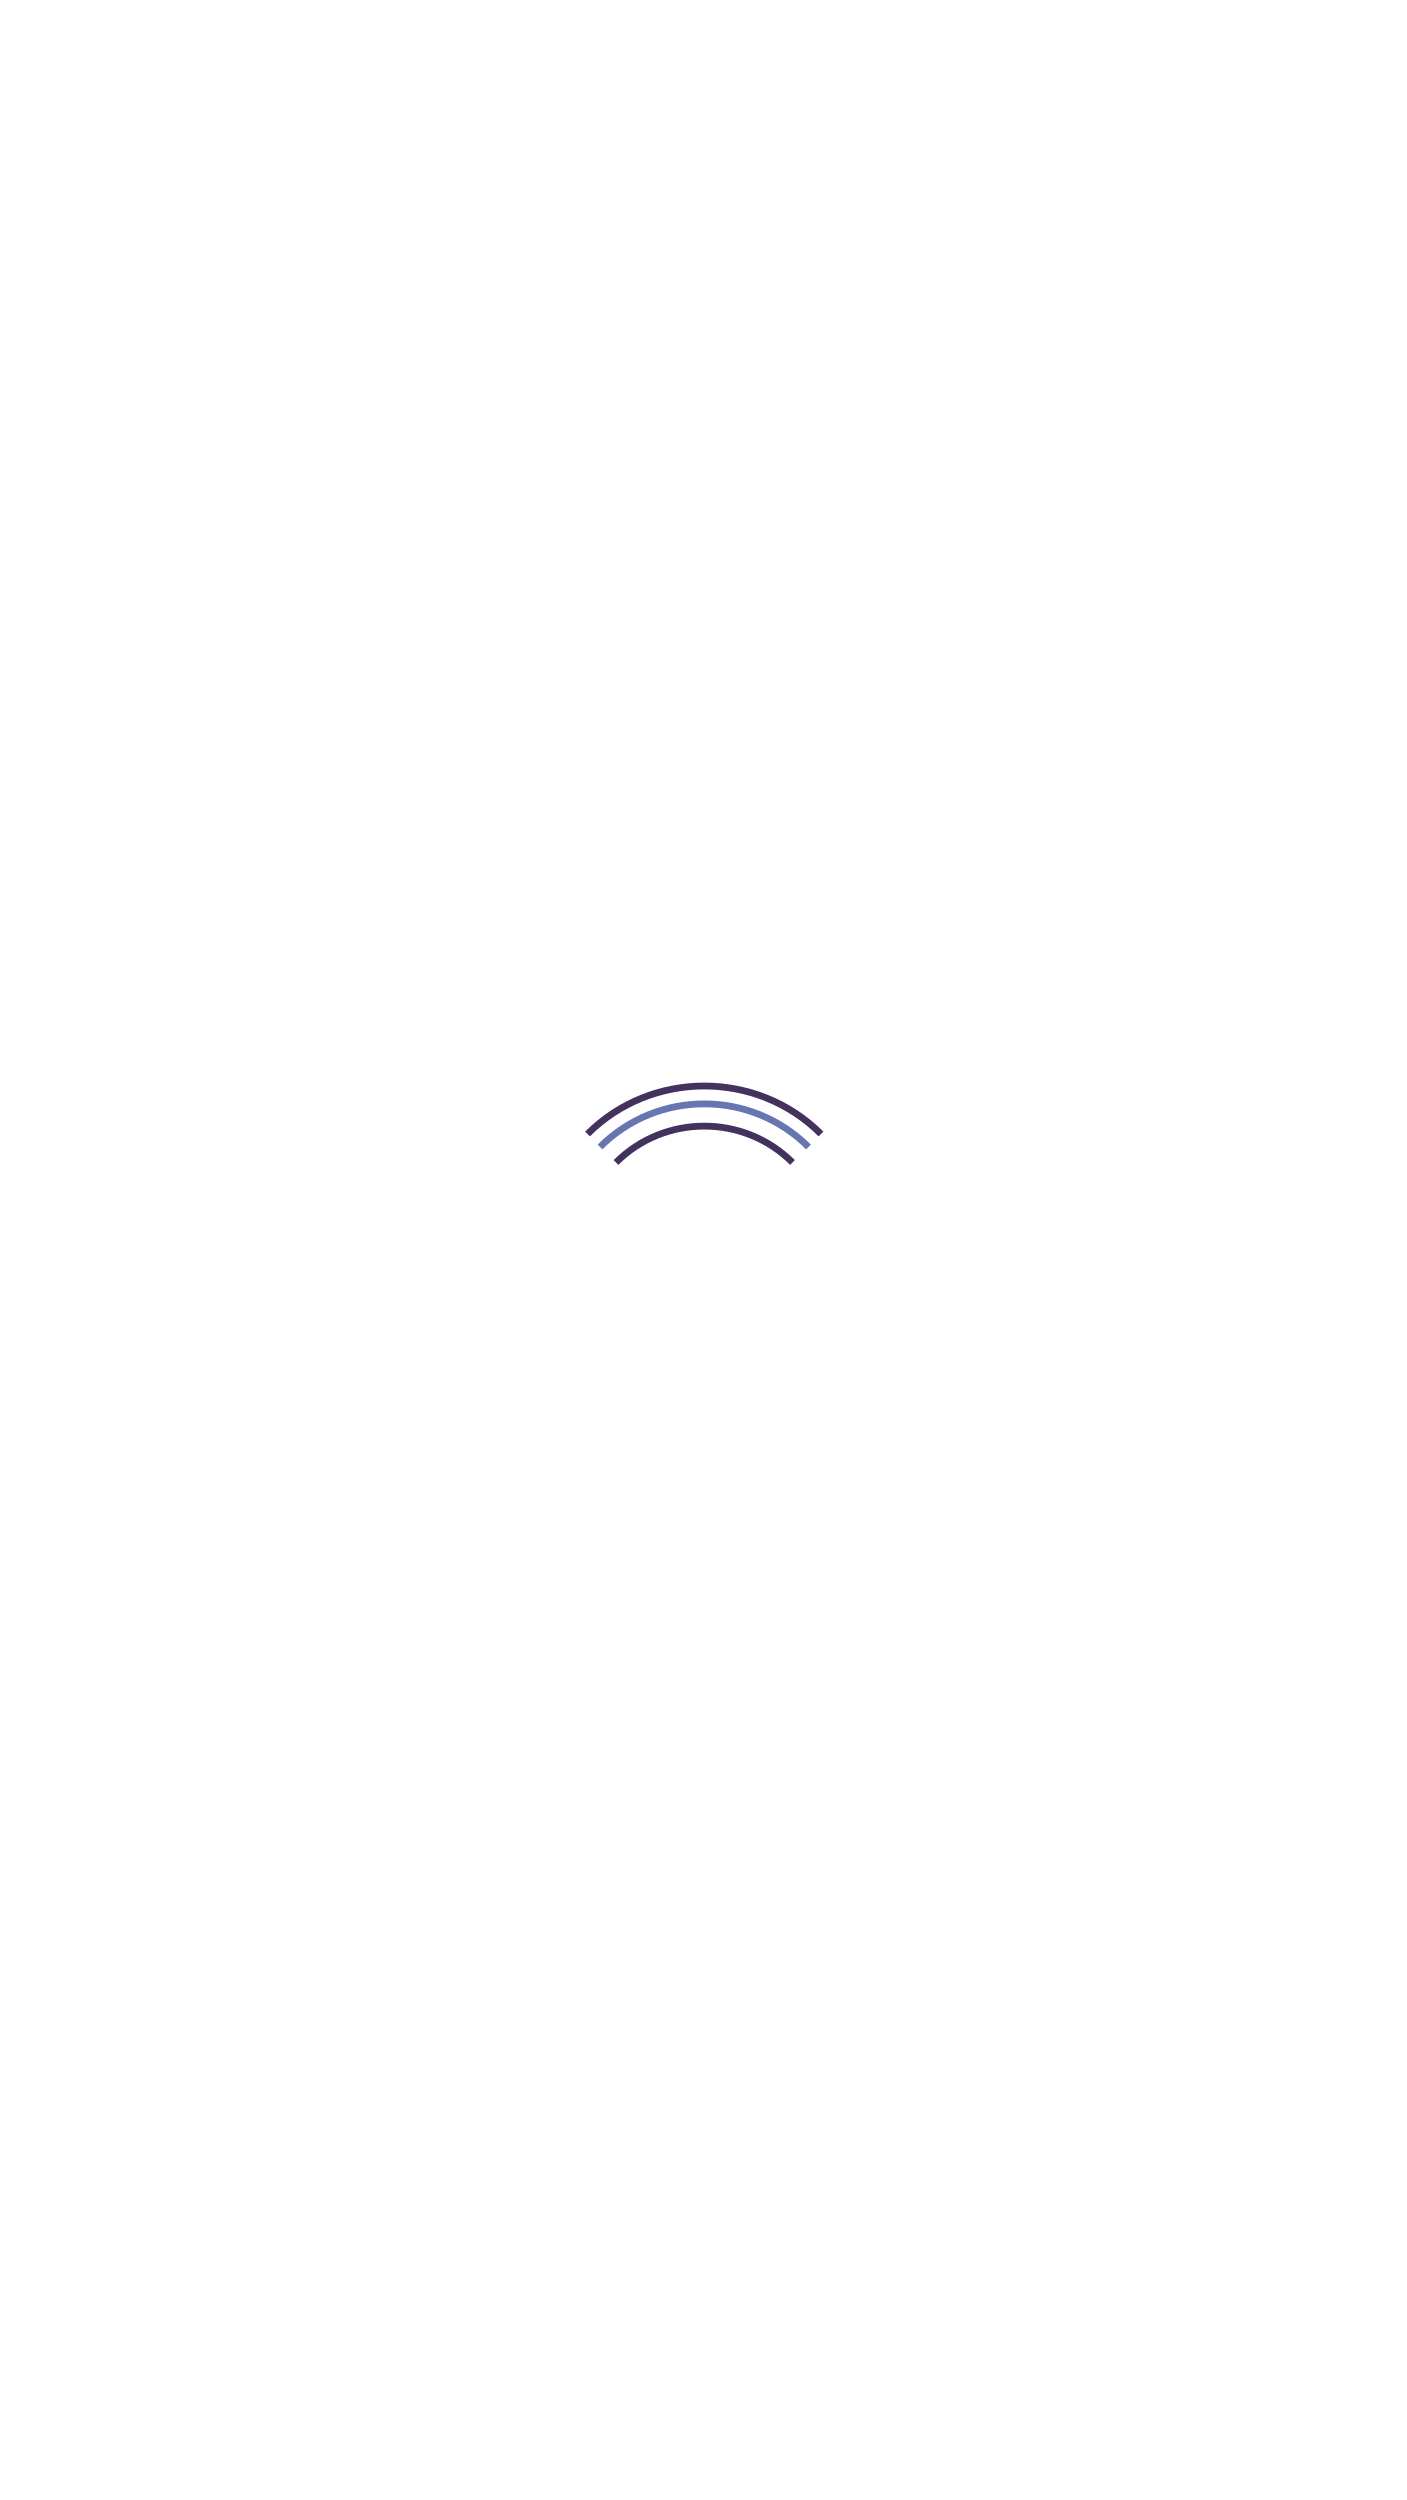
import math
import cairo


def use_color(cr, r, g, b):
  cr.set_source_rgb(r / 255, g / 255, b / 255)

def picture(cr, path, x, y, w, h):
  cr.save()
  cr.set_source_surface(cairo.ImageSurface.create_from_png(path), x, y)
  cr.rectangle(x, y, w, h)
  cr.fill()
  cr.restore()

def draw(cr):
  use_color(cr, 255, 255, 255)
  cr.paint()
  picture(cr, "img_01.png", 38, 180, 1332, 932)
  cr.new_path()
  cr.move_to(587.5, 1134)
  cr.curve_to(651.5, 1070, 757, 1070, 821, 1134)
  use_color(cr, 68, 49, 94)
  cr.set_line_width(6.8)
  cr.stroke()
  cr.new_path()
  cr.move_to(600, 1147)
  cr.curve_to(657.5, 1089.5, 751, 1089.5, 808.5, 1147)
  use_color(cr, 103, 117, 177)
  cr.stroke()
  cr.new_path()
  cr.move_to(616, 1162.5)
  cr.curve_to(664.5, 1114, 744, 1114, 792.5, 1162.5)
  use_color(cr, 68, 49, 94)
  cr.stroke()


surface = cairo.ImageSurface(cairo.FORMAT_RGB24, 1407, 2500)
cr = cairo.Context(surface)
options = cairo.FontOptions()
options.set_hint_metrics(cairo.HINT_METRICS_OFF)
options.set_hint_style(cairo.HINT_STYLE_NONE)
cr.set_font_options(options)
cr.set_miter_limit(4)
draw(cr)
surface.write_to_png("out.png")
